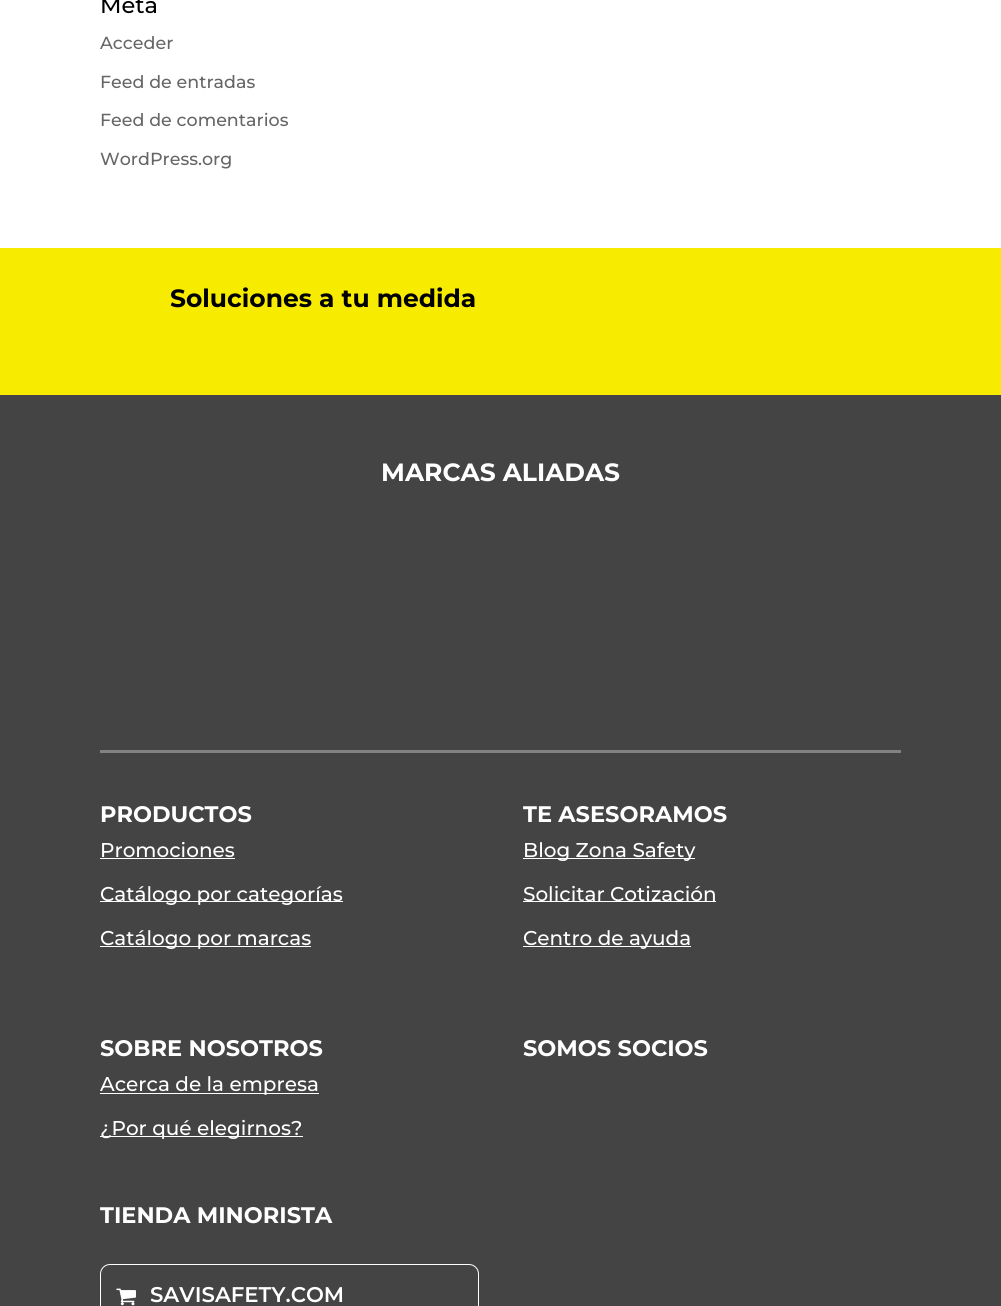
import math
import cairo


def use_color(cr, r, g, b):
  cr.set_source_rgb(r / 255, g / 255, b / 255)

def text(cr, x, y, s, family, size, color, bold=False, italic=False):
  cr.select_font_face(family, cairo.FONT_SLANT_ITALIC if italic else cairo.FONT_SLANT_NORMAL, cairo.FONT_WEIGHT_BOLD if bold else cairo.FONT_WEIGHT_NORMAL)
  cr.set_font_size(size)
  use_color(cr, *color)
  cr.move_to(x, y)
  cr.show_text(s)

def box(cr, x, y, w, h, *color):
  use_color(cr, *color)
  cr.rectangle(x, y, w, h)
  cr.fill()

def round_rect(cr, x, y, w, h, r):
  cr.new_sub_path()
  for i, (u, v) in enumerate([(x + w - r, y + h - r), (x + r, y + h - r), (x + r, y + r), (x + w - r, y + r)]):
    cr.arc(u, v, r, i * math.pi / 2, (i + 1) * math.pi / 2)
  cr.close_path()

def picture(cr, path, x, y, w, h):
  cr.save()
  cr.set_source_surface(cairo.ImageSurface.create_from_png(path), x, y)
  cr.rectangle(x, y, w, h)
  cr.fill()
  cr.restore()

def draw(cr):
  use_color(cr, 255, 255, 255)
  cr.paint()
  box(cr, 0, 248, 1001, 147, 247, 236, 0)
  box(cr, 0, 395, 1001, 911, 68, 68, 68)
  box(cr, 100, 750, 801, 3, 130, 130, 130)
  box(cr, 100, 858, 135, 1, 255, 255, 255)
  box(cr, 100, 901, 243, 1, 255, 255, 255)
  box(cr, 100, 946, 211, 1, 255, 255, 255)
  box(cr, 523, 858, 172, 1, 255, 255, 255)
  box(cr, 523, 901, 193, 1, 255, 255, 255)
  box(cr, 523, 946, 168, 1, 255, 255, 255)
  box(cr, 100, 1093, 219, 1, 255, 255, 255)
  box(cr, 100, 1136, 203, 1, 255, 255, 255)
  round_rect(cr, 100.5, 1264.5, 378, 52, 9.5)
  cr.set_line_width(1)
  cr.stroke()
  picture(cr, "img_01.png", 116, 1288, 20, 18)
  text(cr, 100, 13, "Meta", "Montserrat Thin", 22.5, (0, 0, 0))
  text(cr, 100, 49, "Acceder", "Montserrat Thin", 17.5, (102, 102, 102))
  text(cr, 100, 88, "Feed de entradas", "Montserrat Thin", 17.5, (102, 102, 102))
  text(cr, 100, 126, "Feed de comentarios", "Montserrat Thin", 17.5, (102, 102, 102))
  text(cr, 100, 165, "WordPress.org", "Montserrat Thin", 17.5, (102, 102, 102))
  text(cr, 170, 307, "Soluciones a tu medida", "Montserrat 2 Thin", 25, (0, 0, 0))
  text(cr, 381, 481, "MARCAS ALIADAS", "Montserrat 2 Thin", 25, (255, 255, 255))
  text(cr, 100, 822, "PRODUCTOS", "Montserrat 2 Thin", 22.5, (255, 255, 255))
  text(cr, 100, 857, "Promociones", "Montserrat Thin", 20, (255, 255, 255))
  text(cr, 100, 901, "Catálogo por categorías", "Montserrat Thin", 20, (255, 255, 255))
  text(cr, 100, 945, "Catálogo por marcas", "Montserrat Thin", 20, (255, 255, 255))
  text(cr, 523, 822, "TE ASESORAMOS", "Montserrat 2 Thin", 22.5, (255, 255, 255))
  text(cr, 523, 857, "Blog Zona Safety", "Montserrat Thin", 20, (255, 255, 255))
  text(cr, 523, 901, "Solicitar Cotización", "Montserrat Thin", 20, (255, 255, 255))
  text(cr, 523, 945, "Centro de ayuda", "Montserrat Thin", 20, (255, 255, 255))
  text(cr, 100, 1056, "SOBRE NOSOTROS", "Montserrat 2 Thin", 22.5, (255, 255, 255))
  text(cr, 100, 1091, "Acerca de la empresa", "Montserrat Thin", 20, (255, 255, 255))
  text(cr, 100, 1135, "¿Por qué elegirnos?", "Montserrat Thin", 20, (255, 255, 255))
  text(cr, 100, 1223, "TIENDA MINORISTA", "Montserrat 2 Thin", 22.5, (255, 255, 255))
  text(cr, 150, 1302, "SAVISAFETY.COM", "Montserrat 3 Thin", 21.25, (255, 255, 255))
  text(cr, 523, 1056, "SOMOS SOCIOS", "Montserrat 2 Thin", 22.5, (255, 255, 255))


surface = cairo.ImageSurface(cairo.FORMAT_RGB24, 1001, 1306)
cr = cairo.Context(surface)
options = cairo.FontOptions()
options.set_hint_metrics(cairo.HINT_METRICS_OFF)
options.set_hint_style(cairo.HINT_STYLE_NONE)
cr.set_font_options(options)
cr.set_miter_limit(4)
draw(cr)
surface.write_to_png("out.png")
